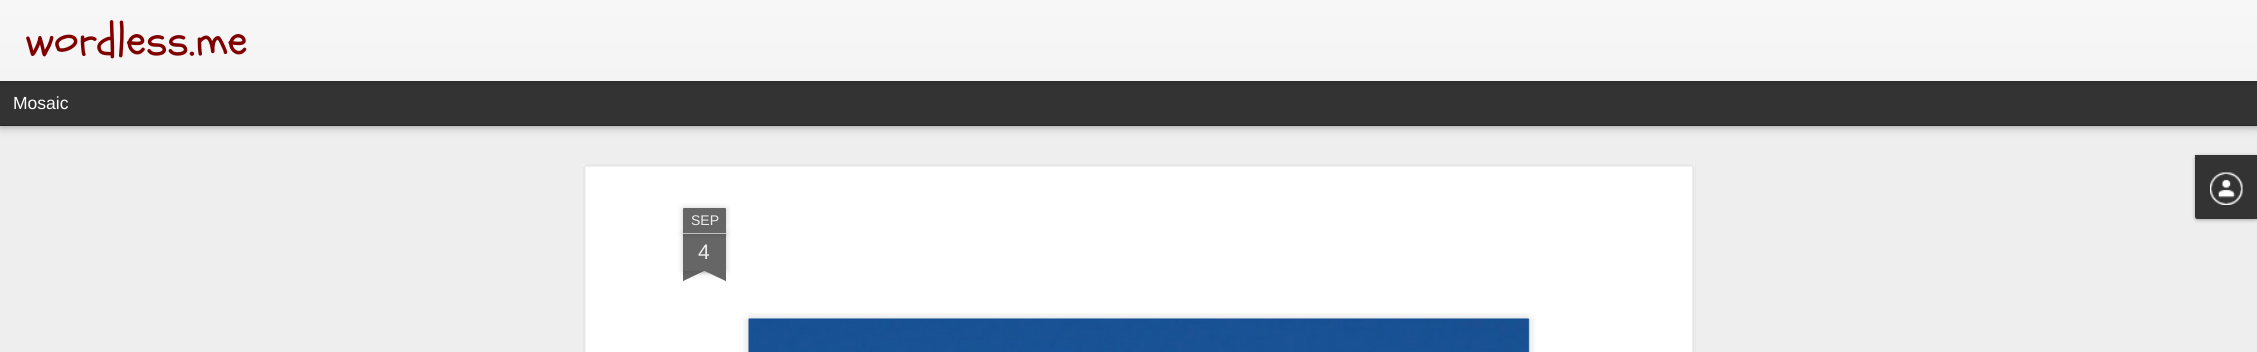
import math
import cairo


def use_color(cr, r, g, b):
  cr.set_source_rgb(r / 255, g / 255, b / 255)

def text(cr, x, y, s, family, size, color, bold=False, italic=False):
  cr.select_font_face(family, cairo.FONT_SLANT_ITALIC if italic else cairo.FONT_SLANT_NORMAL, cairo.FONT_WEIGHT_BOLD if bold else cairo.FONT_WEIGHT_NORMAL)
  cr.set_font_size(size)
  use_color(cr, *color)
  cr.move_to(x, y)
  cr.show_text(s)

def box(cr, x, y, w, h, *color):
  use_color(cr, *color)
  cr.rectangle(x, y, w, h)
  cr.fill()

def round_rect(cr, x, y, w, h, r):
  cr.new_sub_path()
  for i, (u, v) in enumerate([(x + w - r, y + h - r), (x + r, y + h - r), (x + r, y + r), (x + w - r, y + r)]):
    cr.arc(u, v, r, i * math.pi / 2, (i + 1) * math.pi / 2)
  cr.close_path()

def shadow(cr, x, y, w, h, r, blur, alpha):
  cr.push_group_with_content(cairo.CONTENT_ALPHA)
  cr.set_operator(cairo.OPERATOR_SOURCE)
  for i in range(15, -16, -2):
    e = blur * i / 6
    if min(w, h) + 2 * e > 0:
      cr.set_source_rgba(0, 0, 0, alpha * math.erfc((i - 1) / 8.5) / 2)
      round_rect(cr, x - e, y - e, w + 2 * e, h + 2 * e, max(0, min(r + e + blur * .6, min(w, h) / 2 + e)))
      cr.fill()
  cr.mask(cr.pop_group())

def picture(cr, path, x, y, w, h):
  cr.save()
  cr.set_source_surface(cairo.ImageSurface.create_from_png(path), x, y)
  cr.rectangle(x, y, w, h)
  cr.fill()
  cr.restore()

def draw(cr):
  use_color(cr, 51, 51, 51)
  cr.paint()
  box(cr, 0, 126, 2257, 226, 238, 238, 238)
  use_color(cr, 0, 0, 0)
  shadow(cr, 0, 81, 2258, 44, 0, 5, 0.5)
  box(cr, 0, 81, 2257, 44, 51, 51, 51)
  use_color(cr, 0, 0, 0)
  shadow(cr, 0, 0, 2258, 81, 0, 3, 0.3)
  gradient = cairo.LinearGradient(0, 0, 0, 81)
  gradient.add_color_stop_rgba(0, 0.969, 0.969, 0.969, 1)
  gradient.add_color_stop_rgba(1, 0.957, 0.957, 0.957, 1)
  cr.set_source(gradient)
  cr.rectangle(0, 0, 2257, 81)
  cr.fill()
  use_color(cr, 0, 0, 0)
  shadow(cr, 2195, 156, 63, 64, 2.5, 2, 0.3)
  use_color(cr, 51, 51, 51)
  cr.new_path()
  cr.move_to(2195, 155)
  cr.line_to(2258, 155)
  cr.line_to(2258, 219)
  cr.line_to(2197.5, 219)
  cr.curve_to(2196, 219, 2195, 218, 2195, 216.5)
  cr.close_path()
  cr.fill()
  picture(cr, "img_01.png", 2210, 172, 33, 33)
  box(cr, 583, 164, 1112, 188, 255, 255, 255)
  picture(cr, "img_02.png", 583, 164, 1113, 188)
  use_color(cr, 0, 0, 0)
  shadow(cr, 683, 234, 43, 37, 0, 3, 0.2)
  box(cr, 683, 234, 43, 37, 102, 102, 102)
  use_color(cr, 0, 0, 0)
  shadow(cr, 683, 208, 43, 26, 1, 3, 0.2)
  use_color(cr, 102, 102, 102)
  cr.new_path()
  cr.move_to(684, 208)
  cr.line_to(725, 208)
  cr.curve_to(725.5, 208, 726, 208.5, 726, 209)
  cr.line_to(726, 234)
  cr.line_to(683, 234)
  cr.line_to(683, 209)
  cr.curve_to(683, 208.5, 683.5, 208, 684, 208)
  cr.close_path()
  cr.fill()
  box(cr, 683, 233, 43, 1, 194, 194, 194)
  cr.save()
  cr.rectangle(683, 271, 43, 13)
  cr.clip()
  use_color(cr, 0, 0, 0)
  shadow(cr, 671, 259, 63, 12, 0, 3, 0.2)
  cr.restore()
  cr.save()
  cr.rectangle(683, 271, 43, 13)
  cr.clip()
  use_color(cr, 102, 102, 102)
  cr.new_path()
  cr.move_to(672, 273)
  cr.line_to(728, 246)
  cr.line_to(733, 257)
  cr.line_to(677, 284)
  cr.close_path()
  cr.fill()
  cr.restore()
  cr.save()
  cr.rectangle(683, 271, 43, 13)
  cr.clip()
  use_color(cr, 0, 0, 0)
  shadow(cr, 675, 259, 63, 12, 0, 3, 0.2)
  cr.restore()
  cr.save()
  cr.rectangle(683, 271, 43, 13)
  cr.clip()
  use_color(cr, 102, 102, 102)
  cr.new_path()
  cr.move_to(681, 246)
  cr.line_to(737, 273)
  cr.line_to(732, 284)
  cr.line_to(675, 257)
  cr.close_path()
  cr.fill()
  cr.restore()
  picture(cr, "img_03.png", 743, 313, 792, 39)
  picture(cr, "img_04.png", 748, 318, 782, 34)
  text(cr, 25, 55, "wordless.me", "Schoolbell", 45, (128, 0, 0))
  text(cr, 13, 109, "Mosaic", "Liberation Sans", 17.5, (255, 255, 255))
  text(cr, 691, 225, "SEP", "Liberation Sans", 14, (238, 238, 238))
  text(cr, 698, 259, "4", "Liberation Sans", 21, (238, 238, 238))


surface = cairo.ImageSurface(cairo.FORMAT_RGB24, 2257, 352)
cr = cairo.Context(surface)
options = cairo.FontOptions()
options.set_hint_metrics(cairo.HINT_METRICS_OFF)
options.set_hint_style(cairo.HINT_STYLE_NONE)
cr.set_font_options(options)
cr.set_miter_limit(4)
draw(cr)
surface.write_to_png("out.png")
